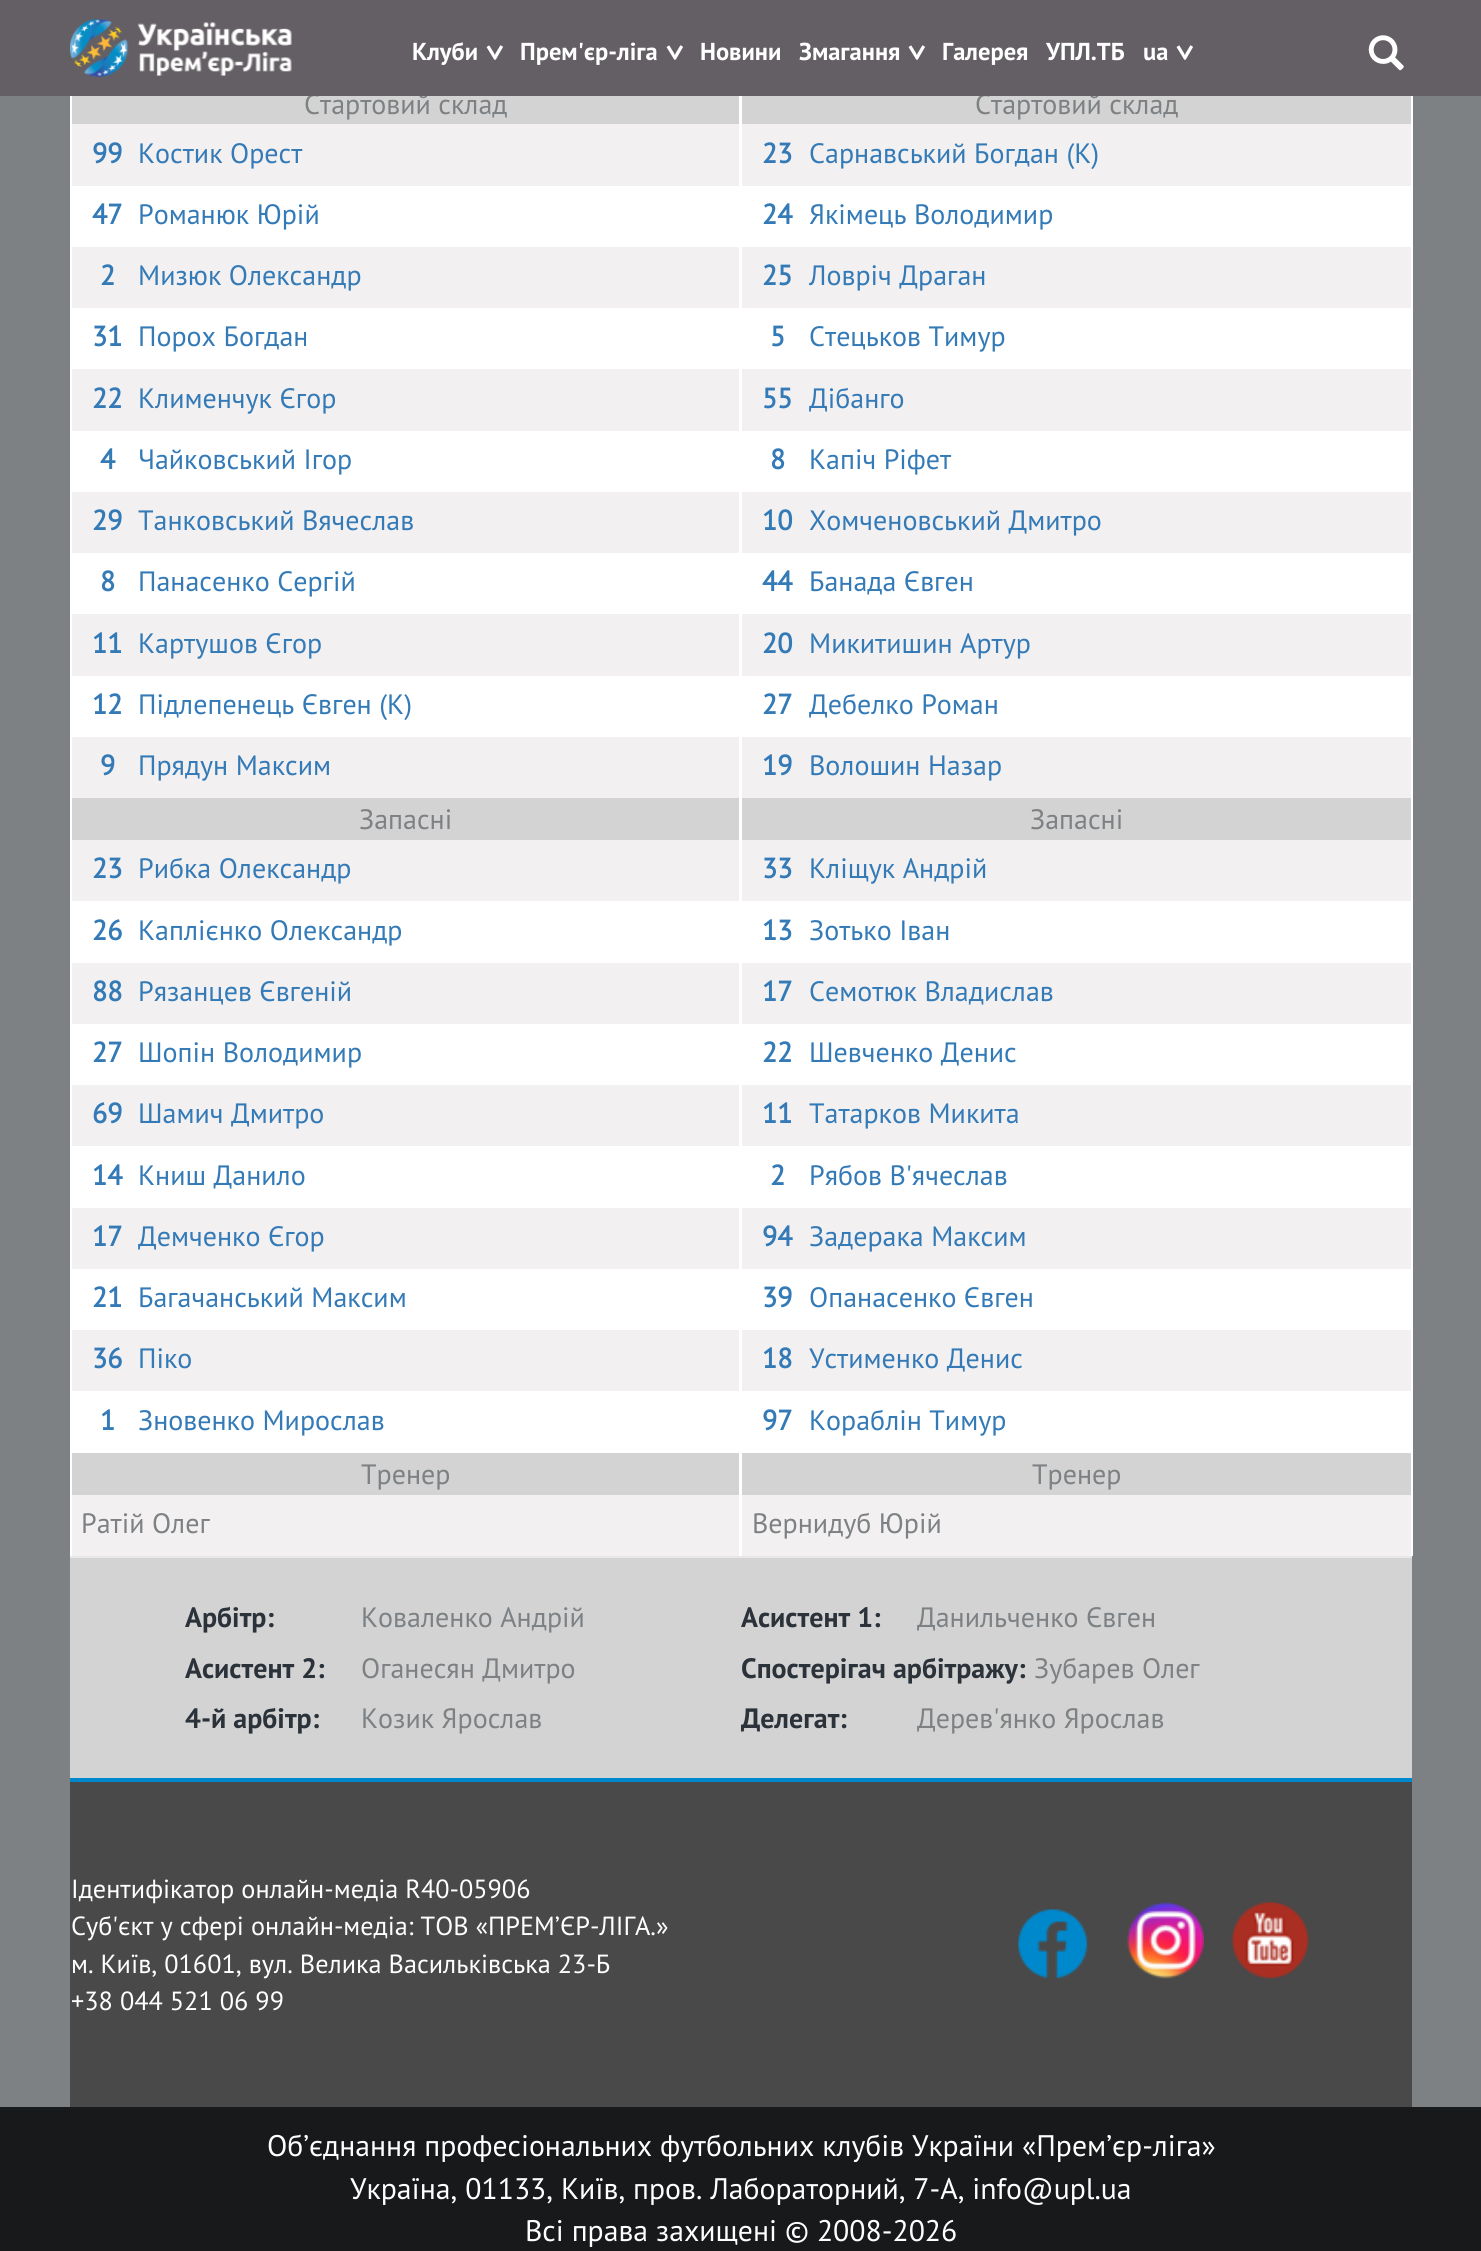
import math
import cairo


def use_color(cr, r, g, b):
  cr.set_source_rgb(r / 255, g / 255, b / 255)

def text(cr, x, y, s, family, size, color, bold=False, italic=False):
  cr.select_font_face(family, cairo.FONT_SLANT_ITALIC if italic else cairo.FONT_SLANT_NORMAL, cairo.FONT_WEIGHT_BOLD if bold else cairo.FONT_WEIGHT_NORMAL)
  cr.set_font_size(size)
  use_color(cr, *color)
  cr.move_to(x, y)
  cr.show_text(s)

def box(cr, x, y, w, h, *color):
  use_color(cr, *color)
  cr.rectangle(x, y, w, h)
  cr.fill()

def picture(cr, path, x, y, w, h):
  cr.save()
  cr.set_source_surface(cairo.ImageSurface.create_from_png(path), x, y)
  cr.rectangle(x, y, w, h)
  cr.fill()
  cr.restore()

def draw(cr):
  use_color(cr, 125, 129, 132)
  cr.paint()
  box(cr, 70, 96, 1343, 1460, 255, 255, 255)
  box(cr, 72, 96, 667, 28, 211, 211, 211)
  box(cr, 72, 124, 667, 62, 242, 240, 241)
  box(cr, 72, 247, 667, 61, 242, 240, 241)
  box(cr, 72, 369, 667, 62, 242, 240, 241)
  box(cr, 72, 492, 667, 61, 242, 240, 241)
  box(cr, 72, 614, 667, 62, 242, 240, 241)
  box(cr, 72, 737, 667, 61, 242, 240, 241)
  box(cr, 72, 798, 667, 42, 211, 211, 211)
  box(cr, 72, 840, 667, 61, 242, 240, 241)
  box(cr, 72, 963, 667, 61, 242, 240, 241)
  box(cr, 72, 1085, 667, 61, 242, 240, 241)
  box(cr, 72, 1208, 667, 61, 242, 240, 241)
  box(cr, 72, 1330, 667, 61, 242, 240, 241)
  box(cr, 72, 1453, 667, 42, 211, 211, 211)
  box(cr, 72, 1495, 667, 61, 242, 240, 241)
  box(cr, 742, 96, 669, 28, 211, 211, 211)
  box(cr, 742, 124, 669, 62, 242, 240, 241)
  box(cr, 742, 247, 669, 61, 242, 240, 241)
  box(cr, 742, 369, 669, 62, 242, 240, 241)
  box(cr, 742, 492, 669, 61, 242, 240, 241)
  box(cr, 742, 614, 669, 62, 242, 240, 241)
  box(cr, 742, 737, 669, 61, 242, 240, 241)
  box(cr, 742, 798, 669, 42, 211, 211, 211)
  box(cr, 742, 840, 669, 61, 242, 240, 241)
  box(cr, 742, 963, 669, 61, 242, 240, 241)
  box(cr, 742, 1085, 669, 61, 242, 240, 241)
  box(cr, 742, 1208, 669, 61, 242, 240, 241)
  box(cr, 742, 1330, 669, 61, 242, 240, 241)
  box(cr, 742, 1453, 669, 42, 211, 211, 211)
  box(cr, 742, 1495, 669, 61, 242, 240, 241)
  box(cr, 70, 1558, 1342, 220, 211, 211, 211)
  box(cr, 70, 1556, 1342, 2, 232, 232, 232)
  box(cr, 70, 1778, 1342, 4, 0, 136, 204)
  box(cr, 70, 1782, 1342, 325, 73, 73, 73)
  picture(cr, "img_03.png", 1018, 1909, 70, 70)
  picture(cr, "img_04.png", 1126, 1902, 78, 77)
  picture(cr, "img_05.png", 1231, 1902, 78, 77)
  box(cr, 0, 2107, 1481, 144, 24, 25, 27)
  text(cr, 304, 114, "Стартовий склад", "PT Sans", 28, (125, 129, 132))
  text(cr, 92, 163, "99", "PT Sans", 28, (51, 122, 183), bold=True)
  text(cr, 138, 163, "Костик Орест", "PT Sans", 28, (51, 122, 183))
  text(cr, 92, 224, "47", "PT Sans", 28, (51, 122, 183), bold=True)
  text(cr, 138, 224, "Романюк Юрій", "PT Sans", 28, (51, 122, 183))
  text(cr, 100, 285, "2", "PT Sans", 28, (51, 122, 183), bold=True)
  text(cr, 138, 285, "Мизюк Олександр", "PT Sans", 28, (51, 122, 183))
  text(cr, 92, 346, "31", "PT Sans", 28, (51, 122, 183), bold=True)
  text(cr, 138, 346, "Порох Богдан", "PT Sans", 28, (51, 122, 183))
  text(cr, 92, 408, "22", "PT Sans", 28, (51, 122, 183), bold=True)
  text(cr, 138, 408, "Клименчук Єгор", "PT Sans", 28, (51, 122, 183))
  text(cr, 100, 469, "4", "PT Sans", 28, (51, 122, 183), bold=True)
  text(cr, 138, 469, "Чайковський Ігор", "PT Sans", 28, (51, 122, 183))
  text(cr, 92, 530, "29", "PT Sans", 28, (51, 122, 183), bold=True)
  text(cr, 138, 530, "Танковський Вячеслав", "PT Sans", 28, (51, 122, 183))
  text(cr, 100, 591, "8", "PT Sans", 28, (51, 122, 183), bold=True)
  text(cr, 138, 591, "Панасенко Сергій", "PT Sans", 28, (51, 122, 183))
  text(cr, 92, 653, "11", "PT Sans", 28, (51, 122, 183), bold=True)
  text(cr, 138, 653, "Картушов Єгор", "PT Sans", 28, (51, 122, 183))
  text(cr, 92, 714, "12", "PT Sans", 28, (51, 122, 183), bold=True)
  text(cr, 138, 714, "Підлепенець Євген (К)", "PT Sans", 28, (51, 122, 183))
  text(cr, 100, 775, "9", "PT Sans", 28, (51, 122, 183), bold=True)
  text(cr, 138, 775, "Прядун Максим", "PT Sans", 28, (51, 122, 183))
  text(cr, 359, 829, "Запасні", "PT Sans", 28, (125, 129, 132))
  text(cr, 92, 878, "23", "PT Sans", 28, (51, 122, 183), bold=True)
  text(cr, 138, 878, "Рибка Олександр", "PT Sans", 28, (51, 122, 183))
  text(cr, 92, 940, "26", "PT Sans", 28, (51, 122, 183), bold=True)
  text(cr, 138, 940, "Каплієнко Олександр", "PT Sans", 28, (51, 122, 183))
  text(cr, 92, 1001, "88", "PT Sans", 28, (51, 122, 183), bold=True)
  text(cr, 138, 1001, "Рязанцев Євгеній", "PT Sans", 28, (51, 122, 183))
  text(cr, 92, 1062, "27", "PT Sans", 28, (51, 122, 183), bold=True)
  text(cr, 138, 1062, "Шопін Володимир", "PT Sans", 28, (51, 122, 183))
  text(cr, 92, 1123, "69", "PT Sans", 28, (51, 122, 183), bold=True)
  text(cr, 138, 1123, "Шамич Дмитро", "PT Sans", 28, (51, 122, 183))
  text(cr, 92, 1185, "14", "PT Sans", 28, (51, 122, 183), bold=True)
  text(cr, 138, 1185, "Книш Данило", "PT Sans", 28, (51, 122, 183))
  text(cr, 92, 1246, "17", "PT Sans", 28, (51, 122, 183), bold=True)
  text(cr, 138, 1246, "Демченко Єгор", "PT Sans", 28, (51, 122, 183))
  text(cr, 92, 1307, "21", "PT Sans", 28, (51, 122, 183), bold=True)
  text(cr, 138, 1307, "Багачанський Максим", "PT Sans", 28, (51, 122, 183))
  text(cr, 92, 1368, "36", "PT Sans", 28, (51, 122, 183), bold=True)
  text(cr, 138, 1368, "Піко", "PT Sans", 28, (51, 122, 183))
  text(cr, 100, 1430, "1", "PT Sans", 28, (51, 122, 183), bold=True)
  text(cr, 138, 1430, "Зновенко Мирослав", "PT Sans", 28, (51, 122, 183))
  text(cr, 361, 1484, "Тренер", "PT Sans", 28, (125, 129, 132))
  text(cr, 81, 1533, "Ратій Олег", "PT Sans", 28, (125, 129, 132))
  text(cr, 975, 114, "Стартовий склад", "PT Sans", 28, (125, 129, 132))
  box(cr, 0, 0, 1481, 96, 100, 95, 100)
  picture(cr, "img_01.png", 70, 19, 222, 58)
  picture(cr, "img_02.png", 1368, 35, 36, 36)
  cr.save()
  cr.translate(1174, 44)
  cr.rotate(90 * math.pi / 180)
  text(cr, 0, 0, ">", "PT Sans", 32, (255, 255, 255), bold=True)
  cr.restore()
  cr.save()
  cr.translate(906, 44)
  cr.rotate(90 * math.pi / 180)
  text(cr, 0, 0, ">", "PT Sans", 32, (255, 255, 255), bold=True)
  cr.restore()
  cr.save()
  cr.translate(664, 44)
  cr.rotate(90 * math.pi / 180)
  text(cr, 0, 0, ">", "PT Sans", 32, (255, 255, 255), bold=True)
  cr.restore()
  cr.save()
  cr.translate(484, 44)
  cr.rotate(90 * math.pi / 180)
  text(cr, 0, 0, ">", "PT Sans", 32, (255, 255, 255), bold=True)
  cr.restore()
  text(cr, 1143, 60, "ua", "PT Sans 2", 24.5, (255, 255, 255), bold=True)
  text(cr, 1046, 60, "УПЛ.ТБ", "PT Sans 2", 24.5, (255, 255, 255), bold=True)
  text(cr, 942, 60, "Галерея", "PT Sans 2", 24.5, (255, 255, 255), bold=True)
  text(cr, 799, 60, "Змагання", "PT Sans 2", 24.5, (255, 255, 255), bold=True)
  text(cr, 700, 60, "Новини", "PT Sans 2", 24.5, (255, 255, 255), bold=True)
  text(cr, 520, 60, "Прем'єр-ліга", "PT Sans 2", 24.5, (255, 255, 255), bold=True)
  text(cr, 412, 60, "Клуби", "PT Sans 2", 24.5, (255, 255, 255), bold=True)
  text(cr, 762, 163, "23", "PT Sans", 28, (51, 122, 183), bold=True)
  text(cr, 809, 163, "Сарнавський Богдан (К)", "PT Sans", 28, (51, 122, 183))
  text(cr, 762, 224, "24", "PT Sans", 28, (51, 122, 183), bold=True)
  text(cr, 809, 224, "Якімець Володимир", "PT Sans", 28, (51, 122, 183))
  text(cr, 762, 285, "25", "PT Sans", 28, (51, 122, 183), bold=True)
  text(cr, 809, 285, "Ловріч Драган", "PT Sans", 28, (51, 122, 183))
  text(cr, 770, 346, "5", "PT Sans", 28, (51, 122, 183), bold=True)
  text(cr, 809, 346, "Стецьков Тимур", "PT Sans", 28, (51, 122, 183))
  text(cr, 762, 408, "55", "PT Sans", 28, (51, 122, 183), bold=True)
  text(cr, 809, 408, "Дібанго", "PT Sans", 28, (51, 122, 183))
  text(cr, 770, 469, "8", "PT Sans", 28, (51, 122, 183), bold=True)
  text(cr, 809, 469, "Капіч Ріфет", "PT Sans", 28, (51, 122, 183))
  text(cr, 762, 530, "10", "PT Sans", 28, (51, 122, 183), bold=True)
  text(cr, 809, 530, "Хомченовський Дмитро", "PT Sans", 28, (51, 122, 183))
  text(cr, 762, 591, "44", "PT Sans", 28, (51, 122, 183), bold=True)
  text(cr, 809, 591, "Банада Євген", "PT Sans", 28, (51, 122, 183))
  text(cr, 762, 653, "20", "PT Sans", 28, (51, 122, 183), bold=True)
  text(cr, 809, 653, "Микитишин Артур", "PT Sans", 28, (51, 122, 183))
  text(cr, 762, 714, "27", "PT Sans", 28, (51, 122, 183), bold=True)
  text(cr, 809, 714, "Дебелко Роман", "PT Sans", 28, (51, 122, 183))
  text(cr, 762, 775, "19", "PT Sans", 28, (51, 122, 183), bold=True)
  text(cr, 809, 775, "Волошин Назар", "PT Sans", 28, (51, 122, 183))
  text(cr, 1030, 829, "Запасні", "PT Sans", 28, (125, 129, 132))
  text(cr, 762, 878, "33", "PT Sans", 28, (51, 122, 183), bold=True)
  text(cr, 809, 878, "Кліщук Андрій", "PT Sans", 28, (51, 122, 183))
  text(cr, 762, 940, "13", "PT Sans", 28, (51, 122, 183), bold=True)
  text(cr, 809, 940, "Зотько Іван", "PT Sans", 28, (51, 122, 183))
  text(cr, 762, 1001, "17", "PT Sans", 28, (51, 122, 183), bold=True)
  text(cr, 809, 1001, "Семотюк Владислав", "PT Sans", 28, (51, 122, 183))
  text(cr, 762, 1062, "22", "PT Sans", 28, (51, 122, 183), bold=True)
  text(cr, 809, 1062, "Шевченко Денис", "PT Sans", 28, (51, 122, 183))
  text(cr, 762, 1123, "11", "PT Sans", 28, (51, 122, 183), bold=True)
  text(cr, 809, 1123, "Татарков Микита", "PT Sans", 28, (51, 122, 183))
  text(cr, 770, 1185, "2", "PT Sans", 28, (51, 122, 183), bold=True)
  text(cr, 809, 1185, "Рябов В'ячеслав", "PT Sans", 28, (51, 122, 183))
  text(cr, 762, 1246, "94", "PT Sans", 28, (51, 122, 183), bold=True)
  text(cr, 809, 1246, "Задерака Максим", "PT Sans", 28, (51, 122, 183))
  text(cr, 762, 1307, "39", "PT Sans", 28, (51, 122, 183), bold=True)
  text(cr, 809, 1307, "Опанасенко Євген", "PT Sans", 28, (51, 122, 183))
  text(cr, 762, 1368, "18", "PT Sans", 28, (51, 122, 183), bold=True)
  text(cr, 809, 1368, "Устименко Денис", "PT Sans", 28, (51, 122, 183))
  text(cr, 762, 1430, "97", "PT Sans", 28, (51, 122, 183), bold=True)
  text(cr, 809, 1430, "Кораблін Тимур", "PT Sans", 28, (51, 122, 183))
  text(cr, 1032, 1484, "Тренер", "PT Sans", 28, (125, 129, 132))
  text(cr, 752, 1533, "Вернидуб Юрій", "PT Sans", 28, (125, 129, 132))
  text(cr, 185, 1627, "Арбітр:", "PT Sans 2", 28, (43, 50, 58), bold=True)
  text(cr, 361, 1627, "Коваленко Андрій", "PT Sans", 28, (125, 129, 132))
  text(cr, 741, 1627, "Асистент 1:", "PT Sans 2", 28, (43, 50, 58), bold=True)
  text(cr, 917, 1627, "Данильченко Євген", "PT Sans", 28, (125, 129, 132))
  text(cr, 185, 1678, "Асистент 2:", "PT Sans 2", 28, (43, 50, 58), bold=True)
  text(cr, 361, 1678, "Оганесян Дмитро", "PT Sans", 28, (125, 129, 132))
  text(cr, 741, 1678, "Спостерігач арбітражу:", "PT Sans 2", 28, (43, 50, 58), bold=True)
  text(cr, 1034, 1678, "Зубарев Олег", "PT Sans", 28, (125, 129, 132))
  text(cr, 185, 1728, "4-й арбітр:", "PT Sans 2", 28, (43, 50, 58), bold=True)
  text(cr, 361, 1728, "Козик Ярослав", "PT Sans", 28, (125, 129, 132))
  text(cr, 741, 1728, "Делегат:", "PT Sans 2", 28, (43, 50, 58), bold=True)
  text(cr, 917, 1728, "Дерев'янко Ярослав", "PT Sans", 28, (125, 129, 132))
  text(cr, 71, 1898, "Ідентифікатор онлайн-медіа R40-05906", "PT Sans", 26.25, (255, 255, 255))
  text(cr, 71, 1935, "Суб'єкт у сфері онлайн-медіа: ТОВ «ПРЕМ’ЄР-ЛІГА.»", "PT Sans", 26.25, (255, 255, 255))
  text(cr, 71, 1973, "м. Київ, 01601, вул. Велика Васильківська 23-Б", "PT Sans", 26.25, (255, 255, 255))
  text(cr, 71, 2010, "+38 044 521 06 99", "PT Sans", 26.25, (255, 255, 255))
  text(cr, 267, 2156, "Об’єднання професіональних футбольних клубів України «Прем’єр-ліга»", "PT Sans", 29.75, (255, 255, 255))
  text(cr, 350, 2199, "Україна, 01133, Київ, пров. Лабораторний, 7-А, info@upl.ua", "PT Sans", 29.75, (255, 255, 255))
  text(cr, 525, 2241, "Всі права захищені © 2008-2026", "PT Sans", 29.75, (255, 255, 255))


surface = cairo.ImageSurface(cairo.FORMAT_RGB24, 1481, 2251)
cr = cairo.Context(surface)
options = cairo.FontOptions()
options.set_hint_metrics(cairo.HINT_METRICS_OFF)
options.set_hint_style(cairo.HINT_STYLE_NONE)
cr.set_font_options(options)
cr.set_miter_limit(4)
draw(cr)
surface.write_to_png("out.png")
